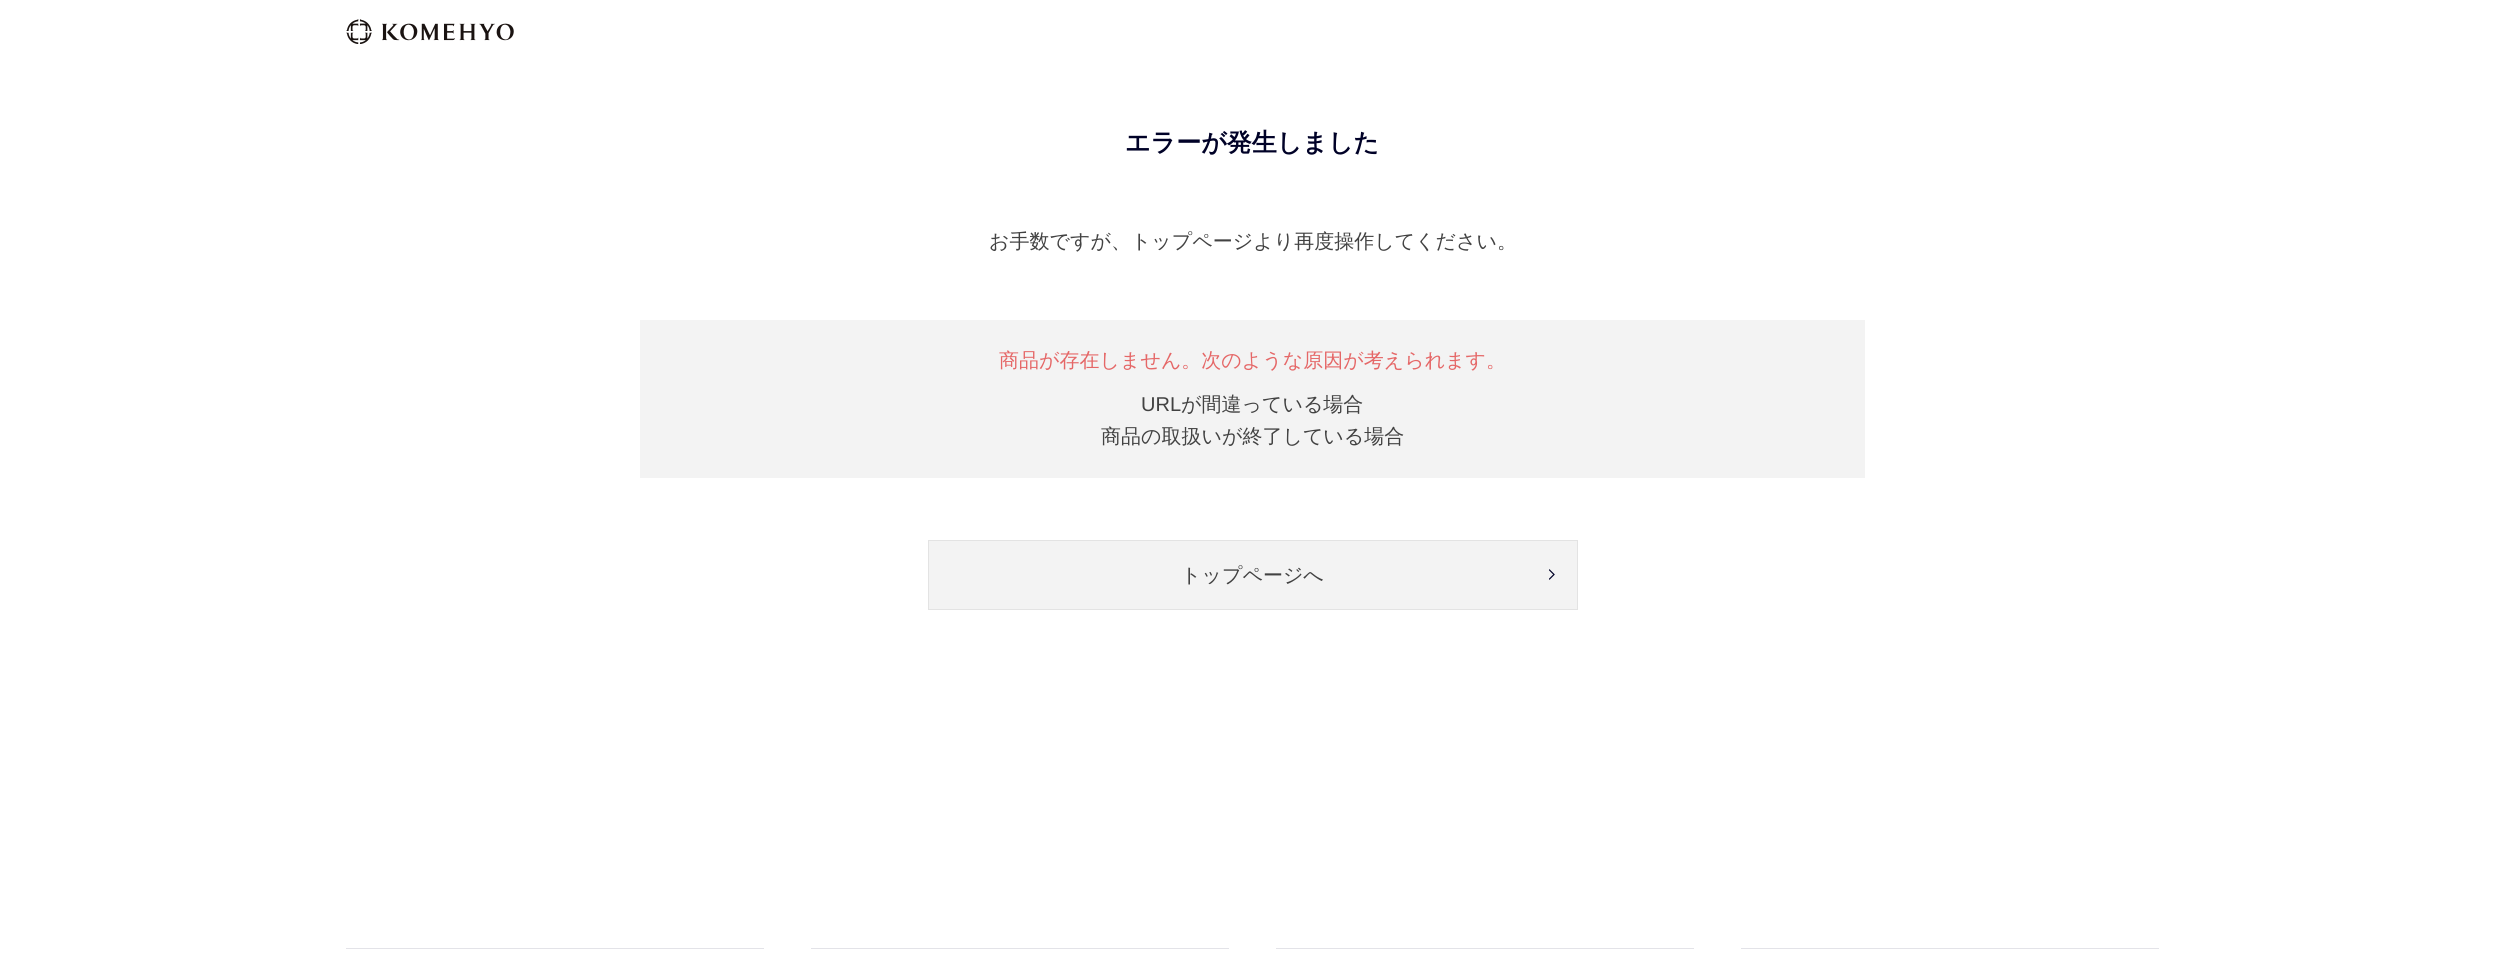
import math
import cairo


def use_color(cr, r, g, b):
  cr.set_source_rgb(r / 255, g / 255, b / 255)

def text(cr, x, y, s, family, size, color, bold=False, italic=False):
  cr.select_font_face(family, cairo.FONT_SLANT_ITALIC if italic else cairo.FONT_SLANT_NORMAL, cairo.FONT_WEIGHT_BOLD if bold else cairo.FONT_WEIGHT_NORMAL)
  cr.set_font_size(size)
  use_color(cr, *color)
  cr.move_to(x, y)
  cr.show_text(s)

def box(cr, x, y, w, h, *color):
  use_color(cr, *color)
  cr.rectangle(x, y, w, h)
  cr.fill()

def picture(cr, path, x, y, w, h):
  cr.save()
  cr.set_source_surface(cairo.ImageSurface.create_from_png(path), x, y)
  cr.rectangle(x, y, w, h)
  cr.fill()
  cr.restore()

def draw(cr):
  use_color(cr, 255, 255, 255)
  cr.paint()
  picture(cr, "img_01.png", 346, 19, 168, 25)
  box(cr, 640, 320, 1225, 158, 243, 243, 243)
  cr.rectangle(928.5, 540.5, 649, 69)
  cr.fill_preserve()
  use_color(cr, 227, 227, 227)
  cr.set_line_width(1)
  cr.stroke()
  cr.save()
  cr.rectangle(1549, 569, 6, 11)
  cr.clip()
  cr.new_path()
  cr.move_to(1549.5, 570)
  cr.line_to(1554, 574.5)
  cr.line_to(1549.5, 579)
  use_color(cr, 0, 1, 39)
  cr.set_line_width(1.2)
  cr.set_line_cap(cairo.LINE_CAP_SQUARE)
  cr.stroke()
  cr.restore()
  box(cr, 346, 948, 418, 1, 227, 227, 232)
  box(cr, 811, 948, 418, 1, 227, 227, 232)
  box(cr, 1276, 948, 418, 1, 227, 227, 232)
  box(cr, 1741, 948, 418, 1, 227, 227, 232)
  text(cr, 1125, 151, "エラーが発生しました", "WenQuanYi Zen Hei", 25, (0, 1, 39), bold=True)
  text(cr, 989, 248, "お手数ですが、トップページより再度操作してください。", "WenQuanYi Zen Hei Medium", 20, (66, 66, 66))
  text(cr, 999, 367, "商品が存在しません。次のような原因が考えられます。", "WenQuanYi Zen Hei Medium", 20, (229, 103, 103))
  text(cr, 1141, 411, "URL", "Liberation Sans", 20, (66, 66, 66))
  text(cr, 1181, 411, "が間違っている場合", "WenQuanYi Zen Hei Medium", 20, (66, 66, 66))
  text(cr, 1101, 443, "商品の取扱いが終了している場合", "WenQuanYi Zen Hei Medium", 20, (66, 66, 66))
  text(cr, 1181, 582, "トップページへ", "WenQuanYi Zen Hei Medium", 20, (66, 66, 66))


surface = cairo.ImageSurface(cairo.FORMAT_RGB24, 2504, 979)
cr = cairo.Context(surface)
options = cairo.FontOptions()
options.set_hint_metrics(cairo.HINT_METRICS_OFF)
options.set_hint_style(cairo.HINT_STYLE_NONE)
cr.set_font_options(options)
cr.set_miter_limit(4)
draw(cr)
surface.write_to_png("out.png")
